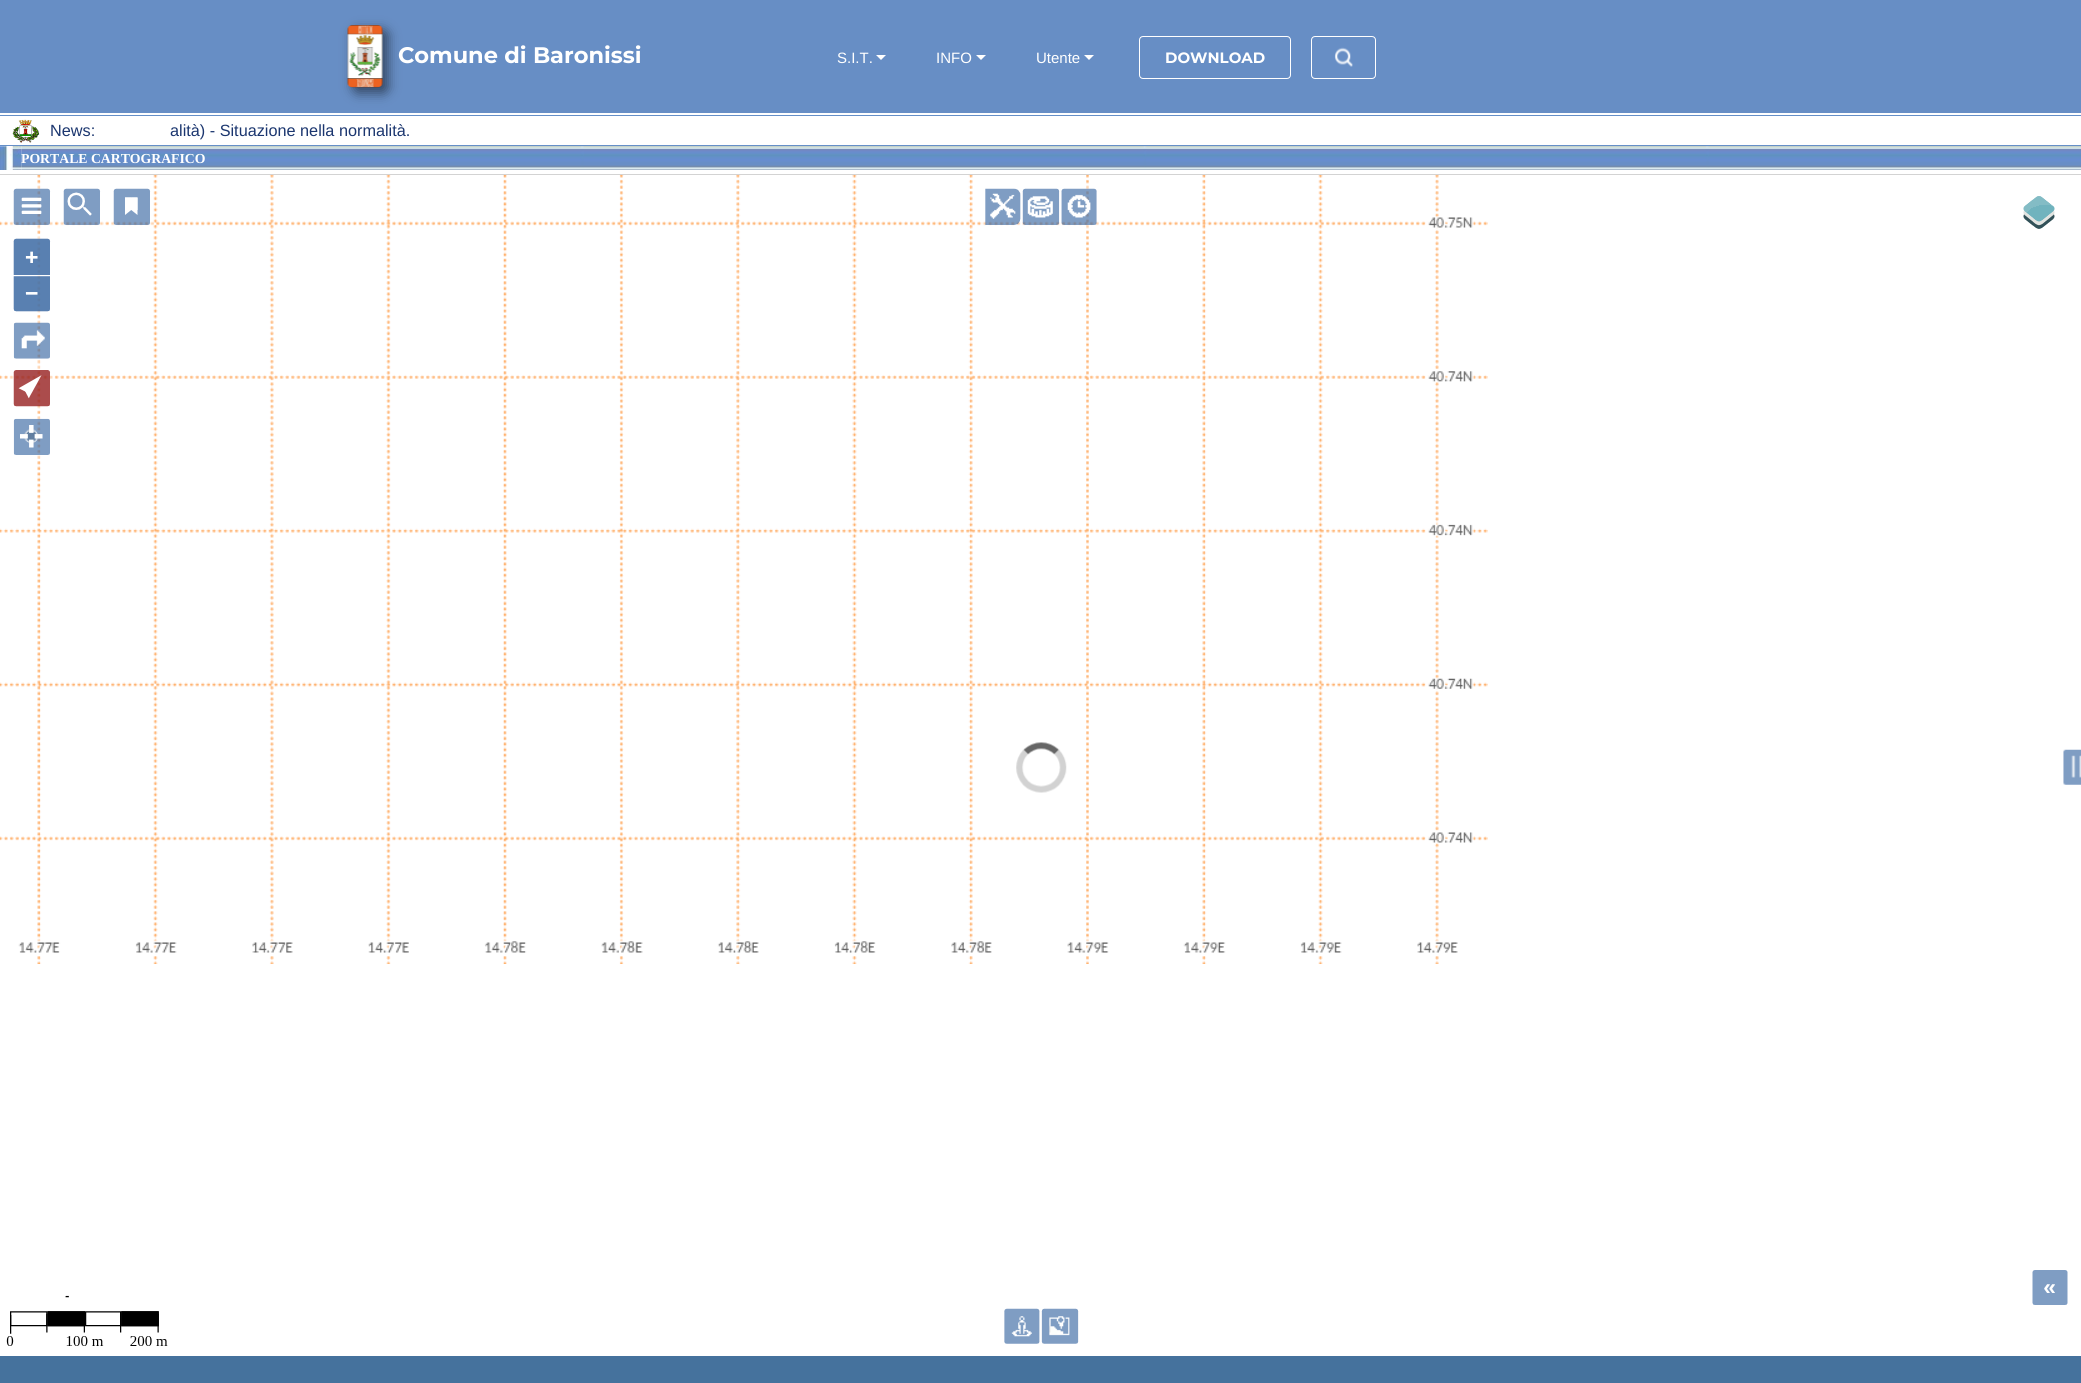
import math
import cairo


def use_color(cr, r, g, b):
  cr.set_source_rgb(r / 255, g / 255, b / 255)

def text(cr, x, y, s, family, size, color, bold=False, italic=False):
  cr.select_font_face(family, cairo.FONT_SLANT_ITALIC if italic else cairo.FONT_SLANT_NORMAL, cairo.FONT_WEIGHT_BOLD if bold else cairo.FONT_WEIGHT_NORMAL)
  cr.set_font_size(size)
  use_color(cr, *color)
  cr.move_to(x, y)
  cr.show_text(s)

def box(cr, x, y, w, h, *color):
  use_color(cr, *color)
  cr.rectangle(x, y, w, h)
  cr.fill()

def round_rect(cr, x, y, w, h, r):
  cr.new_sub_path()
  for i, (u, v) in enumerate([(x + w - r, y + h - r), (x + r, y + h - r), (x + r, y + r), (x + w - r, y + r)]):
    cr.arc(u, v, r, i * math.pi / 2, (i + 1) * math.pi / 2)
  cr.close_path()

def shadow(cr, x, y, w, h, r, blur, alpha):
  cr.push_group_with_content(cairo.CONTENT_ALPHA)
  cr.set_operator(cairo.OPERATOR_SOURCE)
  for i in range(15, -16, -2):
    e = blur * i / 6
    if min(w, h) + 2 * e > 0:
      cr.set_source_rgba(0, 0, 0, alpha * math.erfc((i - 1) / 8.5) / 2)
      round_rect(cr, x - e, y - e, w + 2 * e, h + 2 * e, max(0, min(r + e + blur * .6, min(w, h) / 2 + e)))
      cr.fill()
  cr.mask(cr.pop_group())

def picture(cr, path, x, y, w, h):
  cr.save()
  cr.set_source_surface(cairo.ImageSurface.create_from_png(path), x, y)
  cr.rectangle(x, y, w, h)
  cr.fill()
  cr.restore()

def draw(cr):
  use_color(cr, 255, 255, 255)
  cr.paint()
  box(cr, 0, 0, 2081, 113, 103, 142, 197)
  use_color(cr, 0, 0, 0)
  shadow(cr, 353, 30, 35, 63, 5, 6, 0.5)
  picture(cr, "img_01.png", 347, 25, 36, 63)
  use_color(cr, 255, 255, 255)
  cr.new_path()
  cr.move_to(876, 55)
  cr.line_to(886, 55)
  cr.line_to(881, 60)
  cr.close_path()
  cr.fill()
  cr.new_path()
  cr.move_to(976, 55)
  cr.line_to(986, 55)
  cr.line_to(981, 60)
  cr.close_path()
  cr.fill()
  cr.new_path()
  cr.move_to(1084, 55)
  cr.line_to(1094, 55)
  cr.line_to(1089, 60)
  cr.close_path()
  cr.fill()
  round_rect(cr, 1139.5, 36.5, 151, 42, 3.5)
  cr.set_line_width(1)
  cr.stroke()
  round_rect(cr, 1311.5, 36.5, 64, 42, 3.5)
  cr.stroke()
  picture(cr, "img_02.png", 1334, 47, 19, 20)
  box(cr, 0, 115, 2081, 1, 101, 143, 200)
  picture(cr, "img_03.png", 12, 119, 28, 24)
  box(cr, 0, 145, 2081, 1, 101, 143, 200)
  picture(cr, "img_04.png", 0, 146, 22, 24)
  picture(cr, "img_05.png", 21, 146, 2060, 24)
  box(cr, 0, 174, 2081, 1, 211, 211, 211)
  picture(cr, "img_06.png", 0, 175, 2081, 1208)
  text(cr, 398, 63, "Comune di Baronissi", "Montserrat", 22.5, (255, 255, 255), bold=True)
  text(cr, 837, 63, "S.I.T.", "Liberation Sans", 15, (255, 255, 255))
  text(cr, 936, 63, "INFO", "Liberation Sans", 15, (255, 255, 255))
  text(cr, 1036, 63, "Utente", "Liberation Sans", 15, (255, 255, 255))
  text(cr, 1165, 63, "DOWNLOAD", "Montserrat", 15, (255, 255, 255), bold=True)
  text(cr, 50, 136, "News:", "Liberation Sans", 16.25, (27, 54, 111))
  text(cr, 170, 136, "alità) - Situazione nella normalità.", "Liberation Sans", 16.25, (27, 54, 111))
  text(cr, 21, 163, "PORTALE CARTOGRAFICO", "Liberation Serif", 13.75, (255, 255, 255), bold=True)


surface = cairo.ImageSurface(cairo.FORMAT_RGB24, 2081, 1383)
cr = cairo.Context(surface)
options = cairo.FontOptions()
options.set_hint_metrics(cairo.HINT_METRICS_OFF)
options.set_hint_style(cairo.HINT_STYLE_NONE)
cr.set_font_options(options)
cr.set_miter_limit(4)
draw(cr)
surface.write_to_png("out.png")
